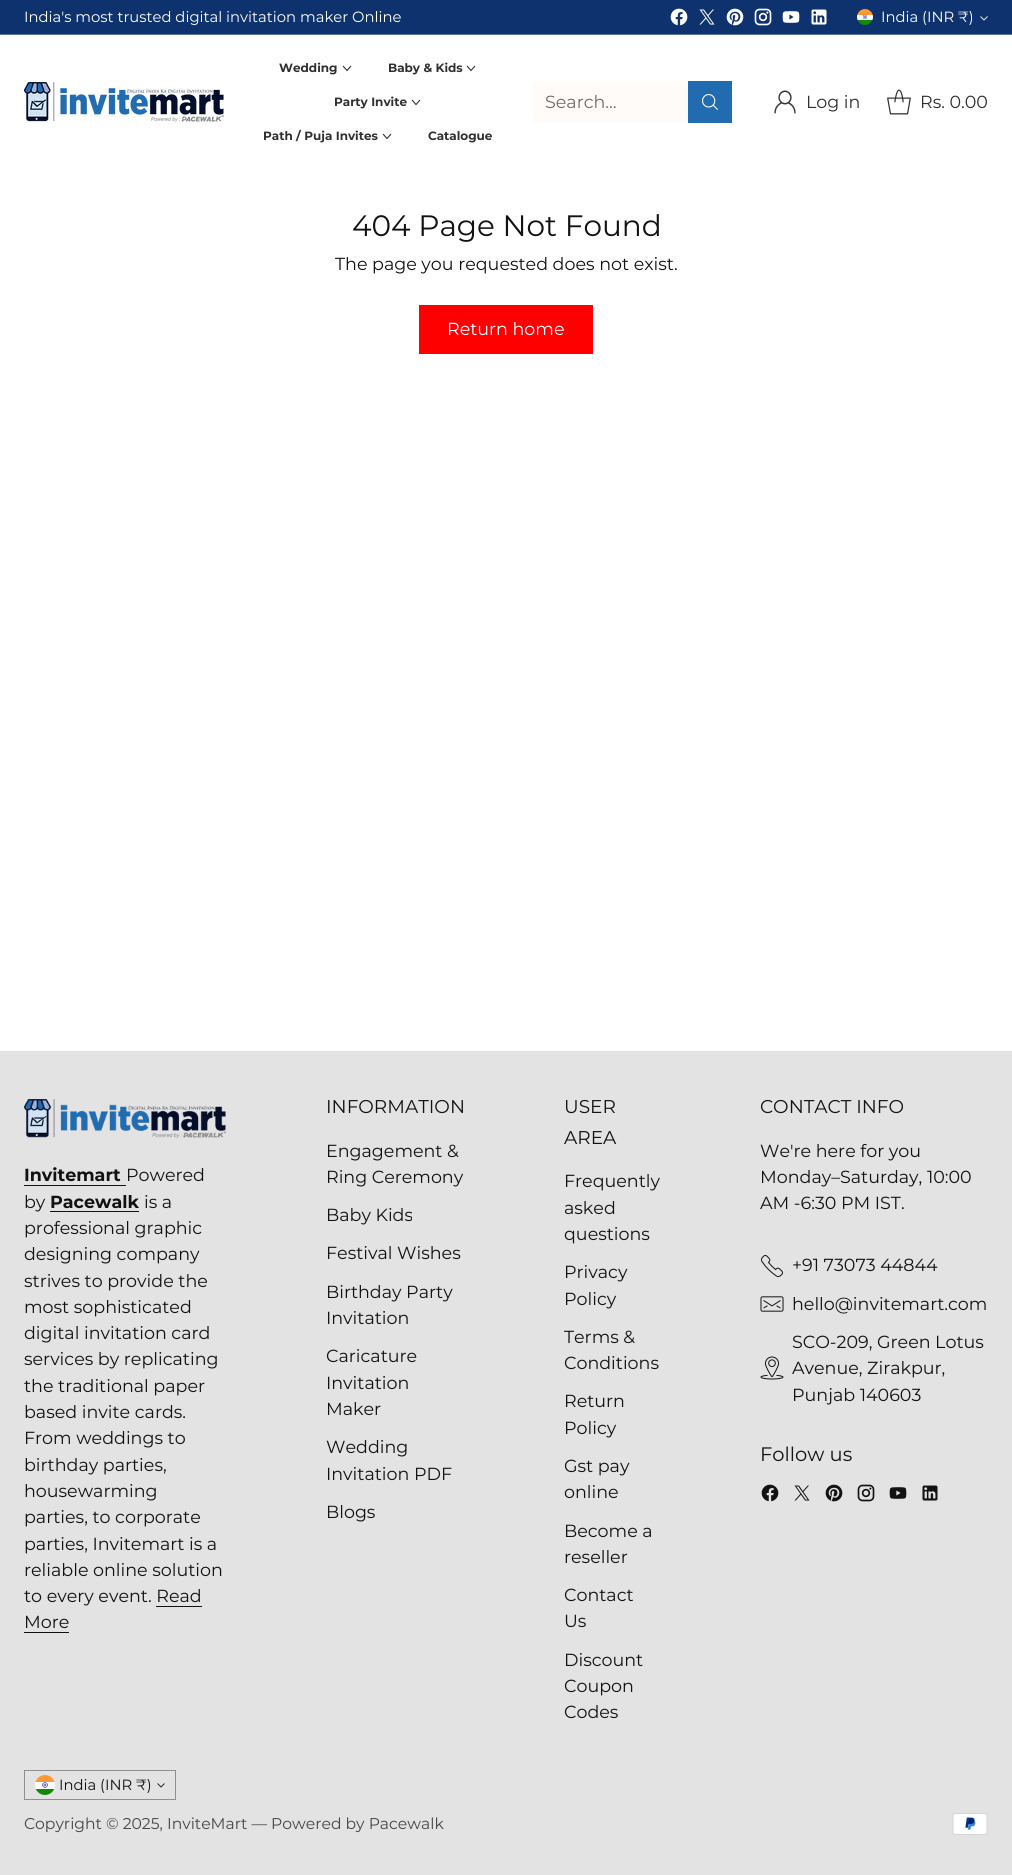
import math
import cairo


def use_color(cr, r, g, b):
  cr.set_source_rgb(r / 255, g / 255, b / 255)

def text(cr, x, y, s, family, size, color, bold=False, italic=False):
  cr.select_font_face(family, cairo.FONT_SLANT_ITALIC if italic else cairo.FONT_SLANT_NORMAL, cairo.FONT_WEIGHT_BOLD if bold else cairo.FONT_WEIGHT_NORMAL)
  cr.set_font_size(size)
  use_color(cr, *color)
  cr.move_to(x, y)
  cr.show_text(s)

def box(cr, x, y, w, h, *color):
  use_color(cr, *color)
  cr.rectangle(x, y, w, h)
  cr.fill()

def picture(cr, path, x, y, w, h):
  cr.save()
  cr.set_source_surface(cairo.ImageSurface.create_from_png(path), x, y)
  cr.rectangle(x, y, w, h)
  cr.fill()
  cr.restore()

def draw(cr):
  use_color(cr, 255, 255, 255)
  cr.paint()
  box(cr, 0, 0, 1012, 34, 13, 50, 109)
  box(cr, 0, 34, 1012, 1, 86, 112, 153)
  picture(cr, "img_01.png", 670, 8, 18, 18)
  picture(cr, "img_02.png", 699, 9, 16, 16)
  picture(cr, "img_03.png", 726, 8, 18, 18)
  picture(cr, "img_04.png", 754, 8, 18, 18)
  picture(cr, "img_05.png", 782, 11, 18, 12)
  picture(cr, "img_06.png", 811, 9, 16, 16)
  picture(cr, "img_07.png", 857, 9, 16, 16)
  cr.new_path()
  cr.move_to(980.5, 16.5)
  cr.line_to(984, 20)
  cr.line_to(987.5, 16.5)
  use_color(cr, 255, 255, 255)
  cr.set_line_width(0.9)
  cr.stroke()
  picture(cr, "img_08.png", 24, 82, 200, 40)
  cr.new_path()
  cr.move_to(343, 66)
  cr.line_to(347, 70.5)
  cr.line_to(351, 66)
  use_color(cr, 48, 48, 48)
  cr.set_line_width(1.1)
  cr.stroke()
  cr.new_path()
  cr.move_to(467, 66)
  cr.line_to(471, 70.5)
  cr.line_to(475, 66)
  cr.stroke()
  cr.new_path()
  cr.move_to(412, 100)
  cr.line_to(416, 104.5)
  cr.line_to(420, 100)
  cr.stroke()
  cr.new_path()
  cr.move_to(383, 134)
  cr.line_to(387, 138.5)
  cr.line_to(391, 134)
  cr.stroke()
  box(cr, 533, 82, 155, 40, 255, 251, 249)
  box(cr, 688, 81, 44, 42, 33, 108, 177)
  picture(cr, "img_09.png", 702, 94, 16, 16)
  picture(cr, "img_10.png", 774, 90, 22, 24)
  picture(cr, "img_11.png", 887, 89, 24, 26)
  box(cr, 419, 305, 174, 49, 255, 0, 0)
  box(cr, 0, 1051, 1012, 824, 227, 227, 227)
  picture(cr, "img_12.png", 24, 1099, 202, 39)
  box(cr, 24, 1185, 102, 1, 18, 18, 18)
  box(cr, 50, 1211, 89, 1, 18, 18, 18)
  box(cr, 156, 1606, 46, 1, 18, 18, 18)
  box(cr, 24, 1632, 45, 1, 18, 18, 18)
  picture(cr, "img_13.png", 761, 1255, 22, 22)
  picture(cr, "img_14.png", 760, 1296, 24, 16)
  picture(cr, "img_15.png", 760, 1356, 24, 24)
  picture(cr, "img_16.png", 761, 1484, 18, 18)
  picture(cr, "img_17.png", 794, 1485, 16, 16)
  picture(cr, "img_18.png", 825, 1484, 18, 18)
  picture(cr, "img_19.png", 857, 1484, 18, 18)
  picture(cr, "img_20.png", 889, 1487, 18, 12)
  picture(cr, "img_21.png", 922, 1485, 16, 16)
  cr.rectangle(24.5, 1770.5, 151, 29)
  use_color(cr, 143, 143, 143)
  cr.set_line_width(1)
  cr.stroke()
  picture(cr, "img_22.png", 35, 1775, 20, 20)
  cr.new_path()
  cr.move_to(157.5, 1783.5)
  cr.line_to(161, 1787)
  cr.line_to(164.5, 1783.5)
  use_color(cr, 18, 18, 18)
  cr.set_line_width(0.9)
  cr.stroke()
  picture(cr, "img_23.png", 952, 1813, 36, 22)
  text(cr, 24, 22, "India's most trusted digital invitation maker Online", "Montserrat", 14.8, (255, 255, 255))
  text(cr, 881, 22, "India (INR ₹)", "Montserrat", 14.8, (255, 255, 255))
  text(cr, 279, 72, "Wedding", "Montserrat", 12, (48, 48, 48), bold=True)
  text(cr, 388, 72, "Baby & Kids", "Montserrat", 12, (48, 48, 48), bold=True)
  text(cr, 334, 106, "Party Invite", "Montserrat", 12, (48, 48, 48), bold=True)
  text(cr, 263, 140, "Path / Puja Invites", "Montserrat", 12, (48, 48, 48), bold=True)
  text(cr, 428, 140, "Catalogue", "Montserrat", 12, (48, 48, 48), bold=True)
  text(cr, 545, 108, "Search…", "Montserrat", 17.5, (110, 109, 108))
  text(cr, 806, 108, "Log in", "Montserrat", 17.5, (48, 48, 48))
  text(cr, 920, 108, "Rs. 0.00", "Montserrat", 17.5, (48, 48, 48))
  text(cr, 352, 236, "404 Page Not Found", "Montserrat", 29.5, (18, 18, 18))
  text(cr, 335, 270, "The page you requested does not exist.", "Montserrat", 17.5, (18, 18, 18))
  text(cr, 447, 335, "Return home", "Montserrat", 17.5, (255, 255, 255))
  text(cr, 24, 1181, "Invitemart", "Montserrat", 17.5, (18, 18, 18), bold=True)
  text(cr, 126, 1181, "Powered", "Montserrat", 17.5, (18, 18, 18))
  text(cr, 24, 1208, "by", "Montserrat", 17.5, (18, 18, 18))
  text(cr, 50, 1208, "Pacewalk", "Montserrat", 17.5, (18, 18, 18), bold=True)
  text(cr, 144, 1208, "is a", "Montserrat", 17.5, (18, 18, 18))
  text(cr, 24, 1234, "professional graphic", "Montserrat", 17.5, (18, 18, 18))
  text(cr, 24, 1260, "designing company", "Montserrat", 17.5, (18, 18, 18))
  text(cr, 24, 1287, "strives to provide the", "Montserrat", 17.5, (18, 18, 18))
  text(cr, 24, 1313, "most sophisticated", "Montserrat", 17.5, (18, 18, 18))
  text(cr, 24, 1339, "digital invitation card", "Montserrat", 17.5, (18, 18, 18))
  text(cr, 24, 1365, "services by replicating", "Montserrat", 17.5, (18, 18, 18))
  text(cr, 24, 1392, "the traditional paper", "Montserrat", 17.5, (18, 18, 18))
  text(cr, 24, 1418, "based invite cards.", "Montserrat", 17.5, (18, 18, 18))
  text(cr, 24, 1444, "From weddings to", "Montserrat", 17.5, (18, 18, 18))
  text(cr, 24, 1471, "birthday parties,", "Montserrat", 17.5, (18, 18, 18))
  text(cr, 24, 1497, "housewarming", "Montserrat", 17.5, (18, 18, 18))
  text(cr, 24, 1523, "parties, to corporate", "Montserrat", 17.5, (18, 18, 18))
  text(cr, 24, 1550, "parties, Invitemart is a", "Montserrat", 17.5, (18, 18, 18))
  text(cr, 24, 1576, "reliable online solution", "Montserrat", 17.5, (18, 18, 18))
  text(cr, 24, 1602, "to every event. Read", "Montserrat", 17.5, (18, 18, 18))
  text(cr, 24, 1628, "More", "Montserrat", 17.5, (18, 18, 18))
  text(cr, 326, 1113, "INFORMATION", "Montserrat", 18.5, (18, 18, 18))
  text(cr, 326, 1157, "Engagement &", "Montserrat", 17.5, (18, 18, 18))
  text(cr, 326, 1183, "Ring Ceremony", "Montserrat", 17.5, (18, 18, 18))
  text(cr, 326, 1221, "Baby Kids", "Montserrat", 17.5, (18, 18, 18))
  text(cr, 326, 1259, "Festival Wishes", "Montserrat", 17.5, (18, 18, 18))
  text(cr, 326, 1298, "Birthday Party", "Montserrat", 17.5, (18, 18, 18))
  text(cr, 326, 1324, "Invitation", "Montserrat", 17.5, (18, 18, 18))
  text(cr, 326, 1362, "Caricature", "Montserrat", 17.5, (18, 18, 18))
  text(cr, 326, 1389, "Invitation", "Montserrat", 17.5, (18, 18, 18))
  text(cr, 326, 1415, "Maker", "Montserrat", 17.5, (18, 18, 18))
  text(cr, 326, 1453, "Wedding", "Montserrat", 17.5, (18, 18, 18))
  text(cr, 326, 1480, "Invitation PDF", "Montserrat", 17.5, (18, 18, 18))
  text(cr, 326, 1518, "Blogs", "Montserrat", 17.5, (18, 18, 18))
  text(cr, 564, 1113, "USER", "Montserrat", 18.5, (18, 18, 18))
  text(cr, 564, 1144, "AREA", "Montserrat", 18.5, (18, 18, 18))
  text(cr, 564, 1187, "Frequently", "Montserrat", 17.5, (18, 18, 18))
  text(cr, 564, 1214, "asked", "Montserrat", 17.5, (18, 18, 18))
  text(cr, 564, 1240, "questions", "Montserrat", 17.5, (18, 18, 18))
  text(cr, 564, 1278, "Privacy", "Montserrat", 17.5, (18, 18, 18))
  text(cr, 564, 1305, "Policy", "Montserrat", 17.5, (18, 18, 18))
  text(cr, 564, 1343, "Terms &", "Montserrat", 17.5, (18, 18, 18))
  text(cr, 564, 1369, "Conditions", "Montserrat", 17.5, (18, 18, 18))
  text(cr, 564, 1407, "Return", "Montserrat", 17.5, (18, 18, 18))
  text(cr, 564, 1434, "Policy", "Montserrat", 17.5, (18, 18, 18))
  text(cr, 564, 1472, "Gst pay", "Montserrat", 17.5, (18, 18, 18))
  text(cr, 564, 1498, "online", "Montserrat", 17.5, (18, 18, 18))
  text(cr, 564, 1537, "Become a", "Montserrat", 17.5, (18, 18, 18))
  text(cr, 564, 1563, "reseller", "Montserrat", 17.5, (18, 18, 18))
  text(cr, 564, 1601, "Contact", "Montserrat", 17.5, (18, 18, 18))
  text(cr, 564, 1627, "Us", "Montserrat", 17.5, (18, 18, 18))
  text(cr, 564, 1666, "Discount", "Montserrat", 17.5, (18, 18, 18))
  text(cr, 564, 1692, "Coupon", "Montserrat", 17.5, (18, 18, 18))
  text(cr, 564, 1718, "Codes", "Montserrat", 17.5, (18, 18, 18))
  text(cr, 760, 1113, "CONTACT INFO", "Montserrat", 18.5, (18, 18, 18))
  text(cr, 760, 1157, "We're here for you", "Montserrat", 17.5, (18, 18, 18))
  text(cr, 760, 1183, "Monday–Saturday, 10:00", "Montserrat", 17.5, (18, 18, 18))
  text(cr, 760, 1209, "AM -6:30 PM IST.", "Montserrat", 17.5, (18, 18, 18))
  text(cr, 792, 1271, "+91 73073 44844", "Montserrat", 17.5, (18, 18, 18))
  text(cr, 792, 1310, "hello@invitemart.com", "Montserrat", 17.5, (18, 18, 18))
  text(cr, 792, 1348, "SCO-209, Green Lotus", "Montserrat", 17.5, (18, 18, 18))
  text(cr, 792, 1374, "Avenue, Zirakpur,", "Montserrat", 17.5, (18, 18, 18))
  text(cr, 792, 1401, "Punjab 140603", "Montserrat", 17.5, (18, 18, 18))
  text(cr, 760, 1461, "Follow us", "Montserrat", 19.5, (18, 18, 18))
  text(cr, 59, 1790, "India (INR ₹)", "Montserrat", 14.8, (18, 18, 18))
  text(cr, 24, 1829, "Copyright © 2025, InviteMart — Powered by Pacewalk", "Montserrat", 15.6, (70, 70, 70))


surface = cairo.ImageSurface(cairo.FORMAT_RGB24, 1012, 1875)
cr = cairo.Context(surface)
options = cairo.FontOptions()
options.set_hint_metrics(cairo.HINT_METRICS_OFF)
options.set_hint_style(cairo.HINT_STYLE_NONE)
cr.set_font_options(options)
cr.set_miter_limit(4)
draw(cr)
surface.write_to_png("out.png")
